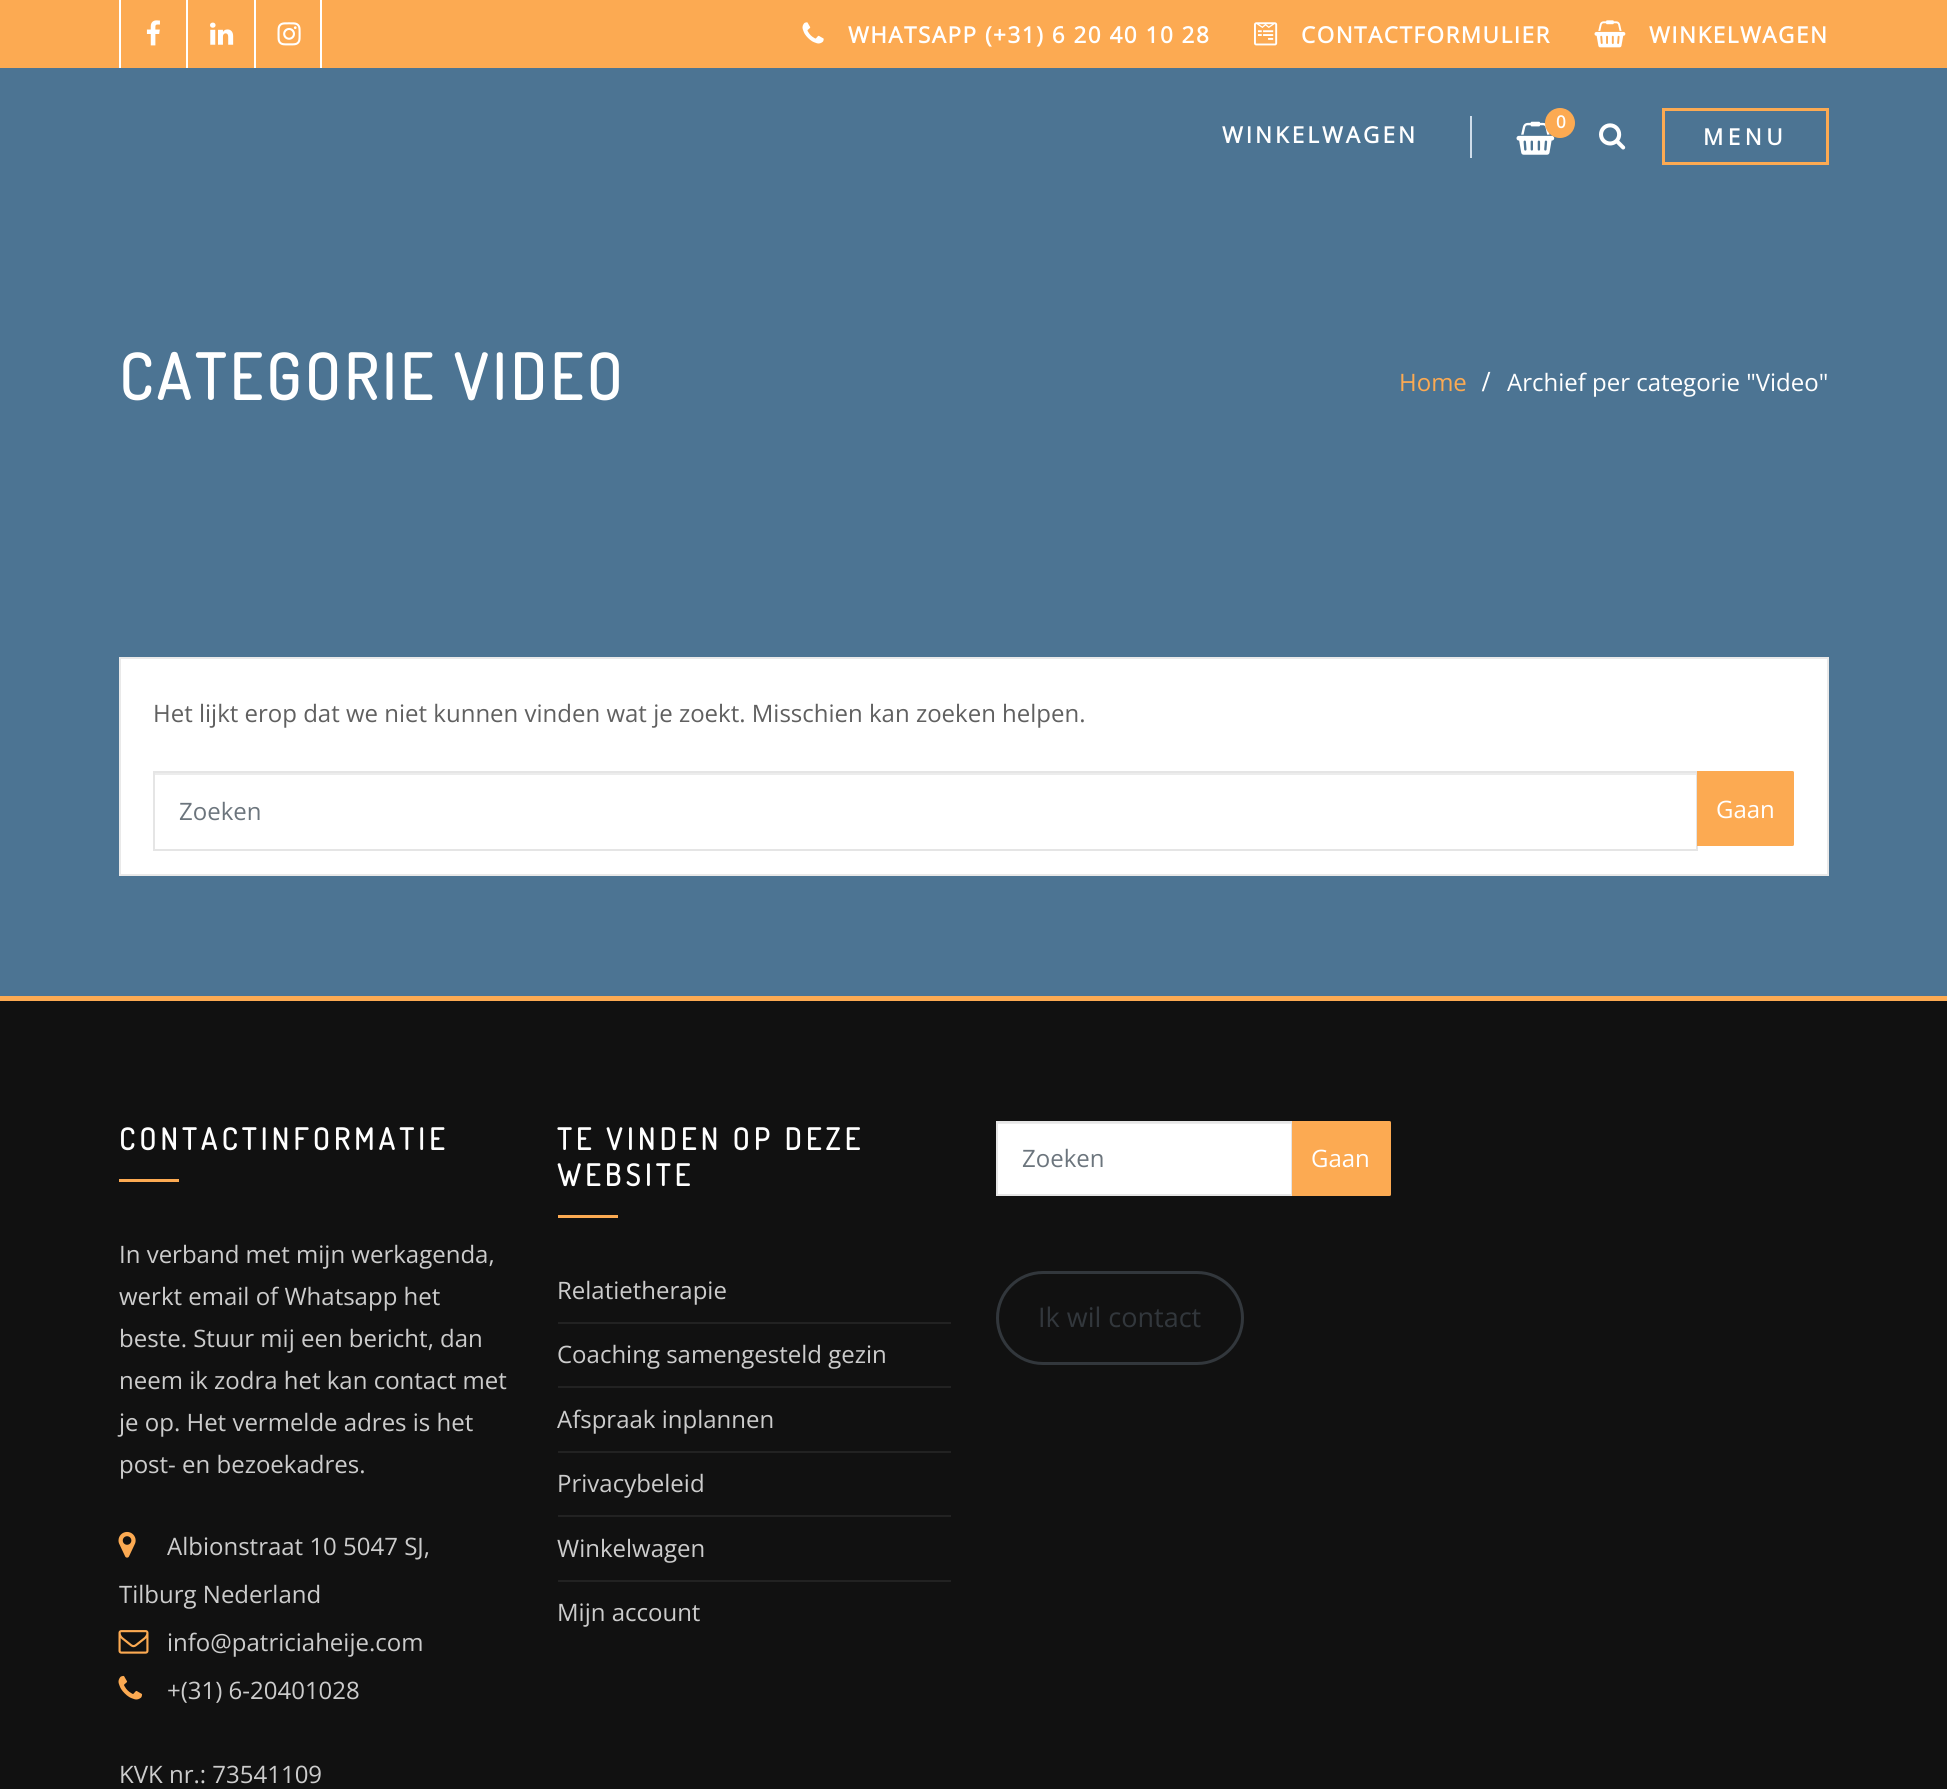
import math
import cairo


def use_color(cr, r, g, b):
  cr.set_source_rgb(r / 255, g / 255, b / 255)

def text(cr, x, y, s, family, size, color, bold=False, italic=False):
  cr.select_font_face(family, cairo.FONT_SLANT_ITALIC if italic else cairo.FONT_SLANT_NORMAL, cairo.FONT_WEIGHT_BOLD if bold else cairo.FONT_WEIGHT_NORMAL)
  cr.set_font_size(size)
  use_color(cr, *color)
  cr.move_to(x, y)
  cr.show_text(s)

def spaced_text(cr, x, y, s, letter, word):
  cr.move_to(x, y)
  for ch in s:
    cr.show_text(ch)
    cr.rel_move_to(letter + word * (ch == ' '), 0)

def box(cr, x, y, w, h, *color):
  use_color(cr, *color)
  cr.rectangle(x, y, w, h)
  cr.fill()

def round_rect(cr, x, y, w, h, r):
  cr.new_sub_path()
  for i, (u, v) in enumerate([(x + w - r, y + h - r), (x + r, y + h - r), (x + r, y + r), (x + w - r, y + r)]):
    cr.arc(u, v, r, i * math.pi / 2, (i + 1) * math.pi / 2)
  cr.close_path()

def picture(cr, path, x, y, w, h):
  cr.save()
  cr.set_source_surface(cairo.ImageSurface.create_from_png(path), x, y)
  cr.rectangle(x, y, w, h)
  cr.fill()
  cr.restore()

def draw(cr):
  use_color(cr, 76, 116, 147)
  cr.paint()
  box(cr, 0, 0, 1947, 68, 252, 170, 82)
  box(cr, 119, 0, 2, 68, 255, 255, 255)
  picture(cr, "img_01.png", 146, 20, 14, 26)
  box(cr, 186, 0, 2, 68, 255, 255, 255)
  picture(cr, "img_02.png", 210, 22, 24, 23)
  box(cr, 320, 0, 2, 68, 255, 255, 255)
  box(cr, 254, 0, 2, 68, 255, 255, 255)
  picture(cr, "img_03.png", 277, 22, 24, 24)
  picture(cr, "img_04.png", 802, 22, 22, 22)
  picture(cr, "img_05.png", 1254, 22, 24, 24)
  picture(cr, "img_06.png", 1594, 20, 32, 28)
  box(cr, 1470, 116, 2, 42, 207, 221, 234)
  picture(cr, "img_07.png", 1516, 121, 39, 34)
  use_color(cr, 252, 170, 82)
  cr.arc(1560, 123, 15, 0, 2 * math.pi)
  cr.fill()
  picture(cr, "img_08.png", 1599, 123, 27, 27)
  cr.rectangle(1663.5, 109.5, 164, 54)
  cr.set_line_width(3)
  cr.stroke()
  use_color(cr, 255, 255, 255)
  cr.rectangle(120, 658, 1708, 217)
  cr.fill_preserve()
  use_color(cr, 233, 233, 233)
  cr.set_line_width(2)
  cr.stroke()
  box(cr, 155, 773, 1542, 2, 236, 236, 236)
  cr.rectangle(154, 772, 1543, 78)
  use_color(cr, 229, 229, 229)
  cr.stroke()
  use_color(cr, 252, 170, 82)
  cr.new_path()
  cr.move_to(1698, 772)
  cr.line_to(1792.5, 772)
  cr.curve_to(1793, 772, 1793, 772, 1793, 772.5)
  cr.line_to(1793, 844.5)
  cr.curve_to(1793, 845, 1793, 845, 1792.5, 845)
  cr.line_to(1698, 845)
  cr.close_path()
  cr.fill_preserve()
  cr.stroke()
  box(cr, 0, 1001, 1947, 788, 17, 17, 17)
  box(cr, 0, 996, 1947, 5, 252, 170, 82)
  box(cr, 119, 1179, 60, 3, 252, 170, 82)
  picture(cr, "img_09.png", 118, 1531, 18, 27)
  picture(cr, "img_10.png", 118, 1630, 31, 24)
  picture(cr, "img_11.png", 118, 1675, 25, 25)
  box(cr, 558, 1215, 60, 3, 252, 170, 82)
  box(cr, 558, 1322, 393, 2, 34, 34, 34)
  box(cr, 558, 1386, 393, 2, 34, 34, 34)
  box(cr, 558, 1451, 393, 2, 34, 34, 34)
  box(cr, 558, 1515, 393, 2, 34, 34, 34)
  box(cr, 558, 1580, 393, 2, 34, 34, 34)
  box(cr, 998, 1124, 293, 70, 255, 255, 255)
  box(cr, 998, 1123, 294, 1, 236, 236, 236)
  cr.rectangle(997, 1122, 295, 73)
  use_color(cr, 229, 229, 229)
  cr.stroke()
  use_color(cr, 252, 170, 82)
  cr.new_path()
  cr.move_to(1293, 1122)
  cr.line_to(1389.5, 1122)
  cr.curve_to(1390, 1122, 1390, 1122, 1390, 1122.5)
  cr.line_to(1390, 1194.5)
  cr.curve_to(1390, 1195, 1390, 1195, 1389.5, 1195)
  cr.line_to(1293, 1195)
  cr.close_path()
  cr.fill_preserve()
  cr.stroke()
  round_rect(cr, 997.5, 1272.5, 245, 91, 45.5)
  use_color(cr, 50, 55, 60)
  cr.set_line_width(3)
  cr.stroke()
  cr.select_font_face("Open Sans", cairo.FONT_SLANT_NORMAL, cairo.FONT_WEIGHT_BOLD)
  cr.set_font_size(22.5)
  use_color(cr, 255, 255, 255)
  spaced_text(cr, 848, 43, "WHATSAPP (+31) 6 20 40 10 28", 1.5, 0)
  spaced_text(cr, 1301, 43, "CONTACTFORMULIER", 1.5, 0)
  spaced_text(cr, 1649, 43, "WINKELWAGEN", 1.5, 0)
  spaced_text(cr, 1222, 143, "WINKELWAGEN", 3, 0)
  text(cr, 1556, 128, "0", "Open Sans", 17, (255, 255, 255), bold=True)
  cr.set_font_size(22.5)
  spaced_text(cr, 1703, 145, "MENU", 4.5, 0)
  cr.select_font_face("Dosis", cairo.FONT_SLANT_NORMAL, cairo.FONT_WEIGHT_BOLD)
  cr.set_font_size(63)
  spaced_text(cr, 119, 400, "CATEGORIE VIDEO", 4.5, 0)
  text(cr, 1399, 391, "Home", "Open Sans", 24, (252, 170, 82))
  cr.select_font_face("Liberation Serif", cairo.FONT_SLANT_NORMAL, cairo.FONT_WEIGHT_BOLD)
  cr.set_font_size(29)
  use_color(cr, 255, 255, 255)
  spaced_text(cr, 1482, 391, "/", 2, 0)
  text(cr, 1507, 391, "Archief per categorie \"Video\"", "Open Sans", 24, (255, 255, 255))
  text(cr, 153, 722, "Het lijkt erop dat we niet kunnen vinden wat je zoekt. Misschien kan zoeken helpen.", "Open Sans", 24, (96, 96, 96))
  text(cr, 179, 820, "Zoeken", "Open Sans", 24, (108, 117, 125))
  text(cr, 1716, 818, "Gaan", "Open Sans", 24, (255, 255, 255))
  cr.select_font_face("Dosis", cairo.FONT_SLANT_NORMAL, cairo.FONT_WEIGHT_BOLD)
  cr.set_font_size(30)
  spaced_text(cr, 119, 1150, "CONTACTINFORMATIE", 4.5, 0)
  text(cr, 119, 1263, "In verband met mijn werkagenda,", "Open Sans", 24, (204, 204, 204))
  text(cr, 119, 1305, "werkt email of Whatsapp het", "Open Sans", 24, (204, 204, 204))
  text(cr, 119, 1347, "beste. Stuur mij een bericht, dan", "Open Sans", 24, (204, 204, 204))
  text(cr, 119, 1389, "neem ik zodra het kan contact met", "Open Sans", 24, (204, 204, 204))
  text(cr, 119, 1431, "je op. Het vermelde adres is het", "Open Sans", 24, (204, 204, 204))
  text(cr, 119, 1473, "post- en bezoekadres.", "Open Sans", 24, (204, 204, 204))
  text(cr, 167, 1555, "Albionstraat 10 5047 SJ,", "Open Sans", 24, (204, 204, 204))
  text(cr, 119, 1603, "Tilburg Nederland", "Open Sans", 24, (204, 204, 204))
  text(cr, 167, 1651, "info@patriciaheije.com", "Open Sans", 24, (204, 204, 204))
  text(cr, 167, 1699, "+(31) 6-20401028", "Open Sans", 24, (204, 204, 204))
  text(cr, 119, 1783, "KVK nr.: 73541109", "Open Sans", 24, (204, 204, 204))
  cr.select_font_face("Dosis", cairo.FONT_SLANT_NORMAL, cairo.FONT_WEIGHT_BOLD)
  cr.set_font_size(30)
  use_color(cr, 255, 255, 255)
  spaced_text(cr, 557, 1150, "TE VINDEN OP DEZE", 4.5, 0)
  spaced_text(cr, 557, 1186, "WEBSITE", 4.5, 0)
  text(cr, 557, 1299, "Relatietherapie", "Open Sans", 24, (204, 204, 204))
  text(cr, 557, 1363, "Coaching samengesteld gezin", "Open Sans", 24, (204, 204, 204))
  text(cr, 557, 1428, "Afspraak inplannen", "Open Sans", 24, (204, 204, 204))
  text(cr, 557, 1492, "Privacybeleid", "Open Sans", 24, (204, 204, 204))
  text(cr, 557, 1557, "Winkelwagen", "Open Sans", 24, (204, 204, 204))
  text(cr, 557, 1621, "Mijn account", "Open Sans", 24, (204, 204, 204))
  text(cr, 1022, 1167, "Zoeken", "Open Sans", 24, (108, 117, 125))
  text(cr, 1311, 1167, "Gaan", "Open Sans", 24, (255, 255, 255))
  text(cr, 1038, 1327, "Ik wil contact", "Open Sans", 27, (50, 55, 60))


surface = cairo.ImageSurface(cairo.FORMAT_RGB24, 1947, 1789)
cr = cairo.Context(surface)
options = cairo.FontOptions()
options.set_hint_metrics(cairo.HINT_METRICS_OFF)
options.set_hint_style(cairo.HINT_STYLE_NONE)
cr.set_font_options(options)
cr.set_miter_limit(4)
draw(cr)
surface.write_to_png("out.png")
